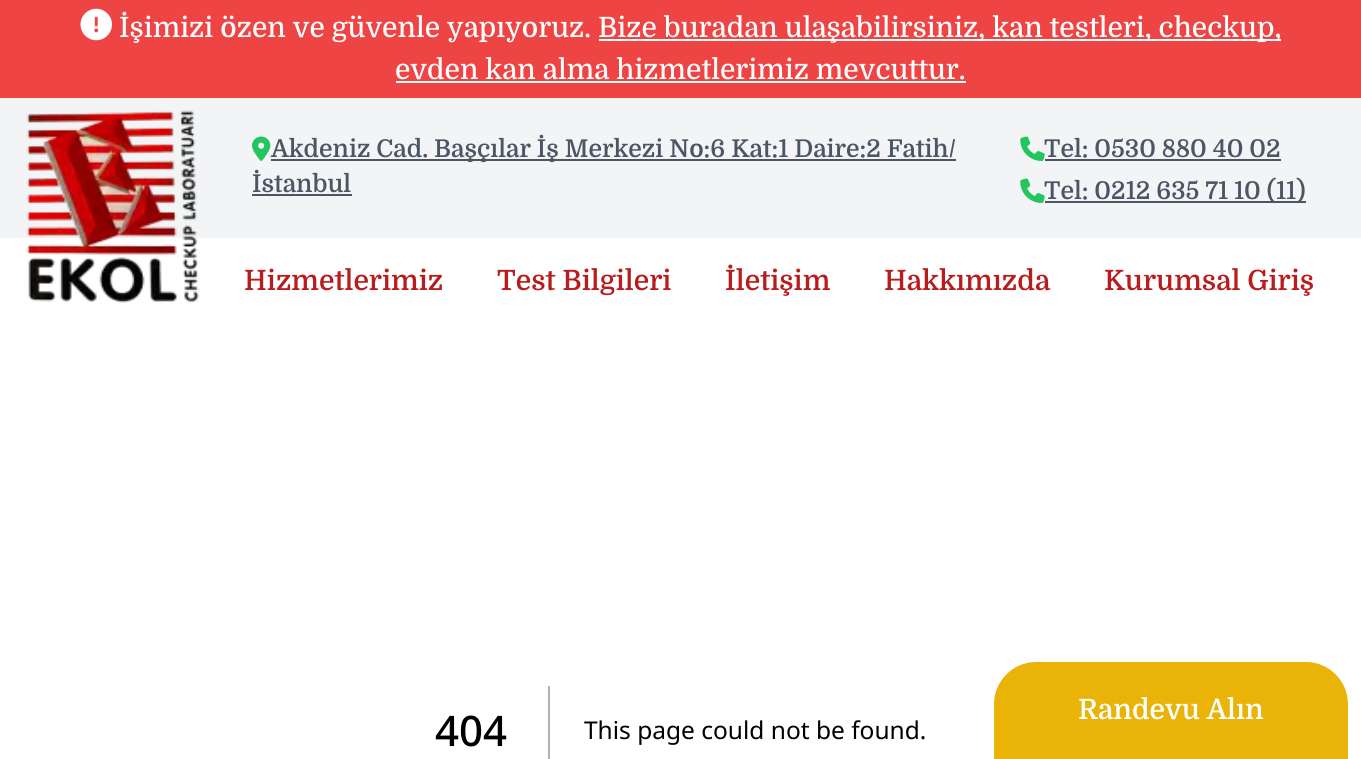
import math
import cairo


def use_color(cr, r, g, b):
  cr.set_source_rgb(r / 255, g / 255, b / 255)

def text(cr, x, y, s, family, size, color, bold=False, italic=False):
  cr.select_font_face(family, cairo.FONT_SLANT_ITALIC if italic else cairo.FONT_SLANT_NORMAL, cairo.FONT_WEIGHT_BOLD if bold else cairo.FONT_WEIGHT_NORMAL)
  cr.set_font_size(size)
  use_color(cr, *color)
  cr.move_to(x, y)
  cr.show_text(s)

def box(cr, x, y, w, h, *color):
  use_color(cr, *color)
  cr.rectangle(x, y, w, h)
  cr.fill()

def picture(cr, path, x, y, w, h):
  cr.save()
  cr.set_source_surface(cairo.ImageSurface.create_from_png(path), x, y)
  cr.rectangle(x, y, w, h)
  cr.fill()
  cr.restore()

def draw(cr):
  use_color(cr, 255, 255, 255)
  cr.paint()
  box(cr, 0, 0, 1361, 98, 239, 68, 68)
  picture(cr, "img_01.png", 80, 8, 32, 33)
  box(cr, 599, 39, 682, 2, 255, 255, 255)
  box(cr, 396, 81, 570, 2, 255, 255, 255)
  box(cr, 0, 98, 1361, 140, 243, 244, 246)
  picture(cr, "img_02.png", 9, 110, 190, 205)
  box(cr, 271, 159, 685, 2, 75, 85, 99)
  box(cr, 252, 194, 100, 2, 75, 85, 99)
  box(cr, 1045, 159, 236, 2, 75, 85, 99)
  box(cr, 1045, 201, 261, 2, 75, 85, 99)
  use_color(cr, 234, 179, 8)
  cr.new_path()
  cr.move_to(1036, 662)
  cr.line_to(1306, 662)
  cr.curve_to(1329, 662, 1348, 681, 1348, 704)
  cr.line_to(1348, 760)
  cr.line_to(994, 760)
  cr.line_to(994, 704)
  cr.curve_to(994, 681, 1013, 662, 1036, 662)
  cr.close_path()
  cr.fill()
  box(cr, 548, 686, 2, 73, 179, 179, 179)
  text(cr, 119, 37, "İşimizi özen ve güvenle yapıyoruz.", "Domine Medium", 28, (255, 255, 255))
  text(cr, 598, 37, "Bize buradan ulaşabilirsiniz, kan testleri, checkup,", "Domine Medium", 28, (255, 255, 255))
  text(cr, 395, 79, "evden kan alma hizmetlerimiz mevcuttur.", "Domine Medium", 28, (255, 255, 255))
  text(cr, 271, 157, "Akdeniz Cad. Başçılar İş Merkezi No:6 Kat:1 Daire:2 Fatih/", "Domine SemiBold", 24.5, (75, 85, 99))
  picture(cr, "img_03.png", 252, 136, 19, 25)
  text(cr, 252, 192, "İstanbul", "Domine SemiBold", 24.5, (75, 85, 99))
  text(cr, 1044, 157, "Tel: 0530 880 40 02", "Domine SemiBold", 24.5, (75, 85, 99))
  picture(cr, "img_04.png", 1020, 136, 25, 25)
  text(cr, 1044, 199, "Tel: 0212 635 71 10 (11)", "Domine SemiBold", 24.5, (75, 85, 99))
  picture(cr, "img_04.png", 1020, 178, 25, 25)
  text(cr, 244, 290, "Hizmetlerimiz", "Domine SemiBold", 28, (185, 28, 28))
  text(cr, 497, 290, "Test Bilgileri", "Domine SemiBold", 28, (185, 28, 28))
  text(cr, 725, 290, "İletişim", "Domine SemiBold", 28, (185, 28, 28))
  text(cr, 884, 290, "Hakkımızda", "Domine SemiBold", 28, (185, 28, 28))
  text(cr, 1104, 290, "Kurumsal Giriş", "Domine SemiBold", 28, (185, 28, 28))
  text(cr, 1078, 719, "Randevu Alın", "Domine SemiBold", 28, (255, 255, 255))
  text(cr, 435, 746, "404", "Noto Sans Medium", 42, (0, 0, 0))
  text(cr, 584, 739, "This page could not be found.", "Noto Sans", 24.5, (0, 0, 0))


surface = cairo.ImageSurface(cairo.FORMAT_RGB24, 1361, 759)
cr = cairo.Context(surface)
options = cairo.FontOptions()
options.set_hint_metrics(cairo.HINT_METRICS_OFF)
options.set_hint_style(cairo.HINT_STYLE_NONE)
cr.set_font_options(options)
cr.set_miter_limit(4)
draw(cr)
surface.write_to_png("out.png")
